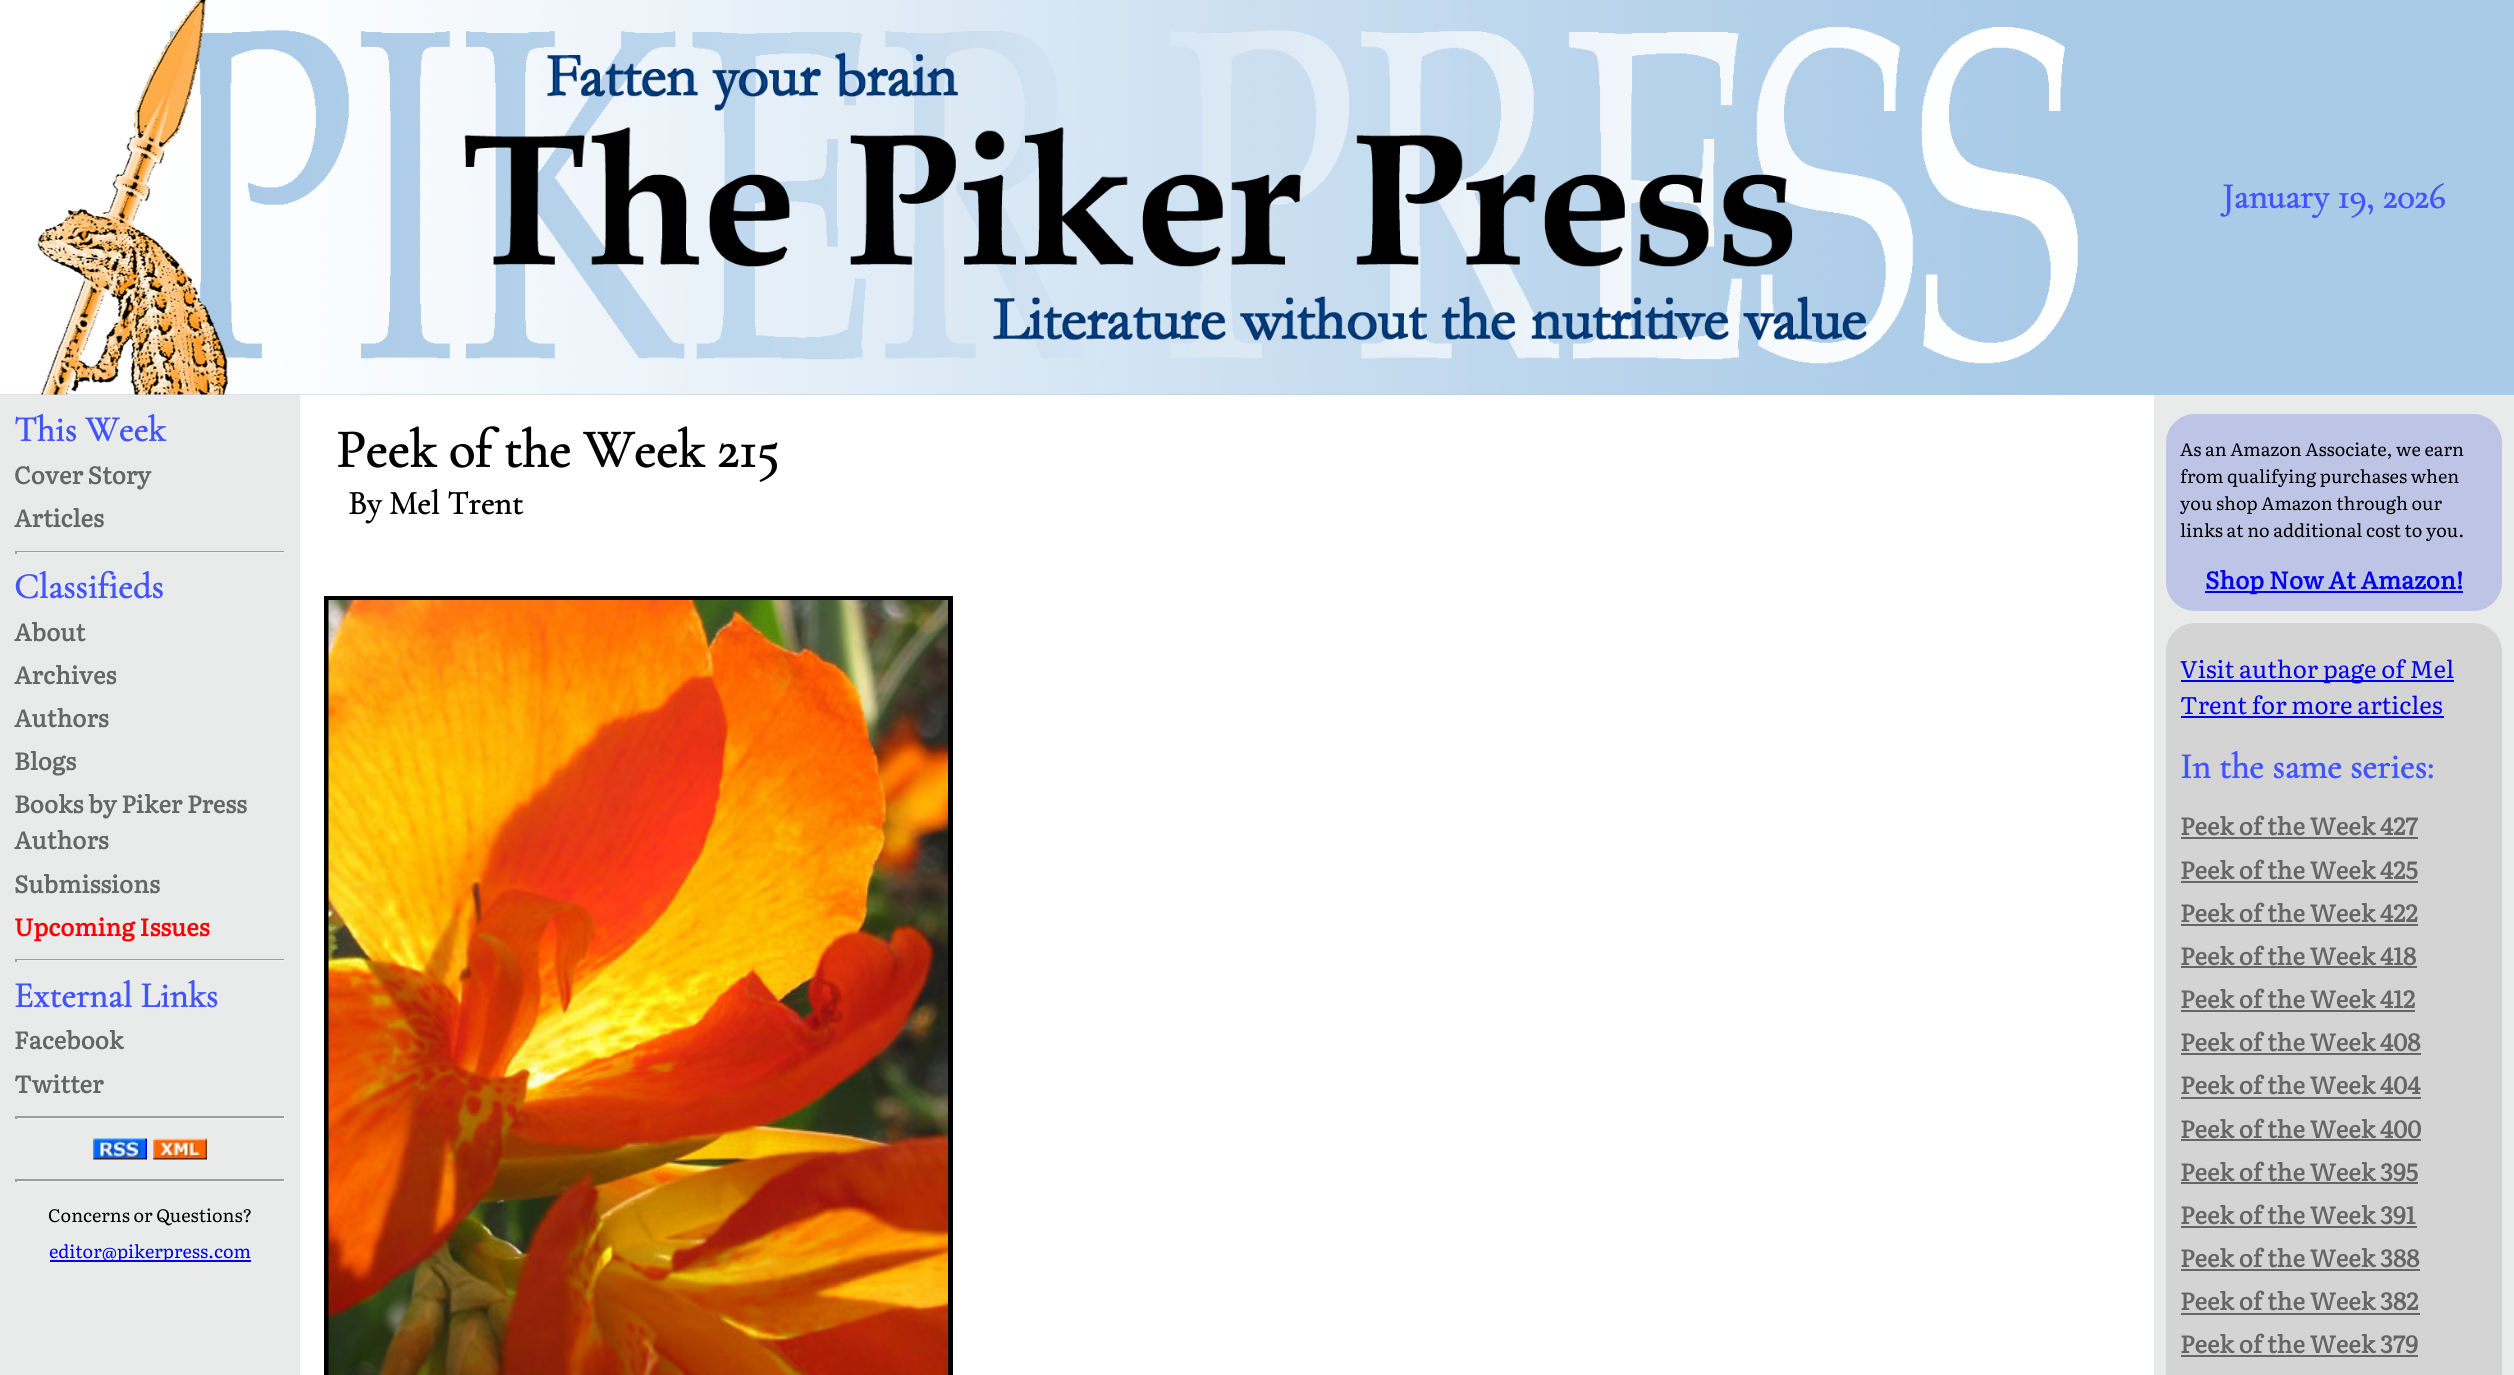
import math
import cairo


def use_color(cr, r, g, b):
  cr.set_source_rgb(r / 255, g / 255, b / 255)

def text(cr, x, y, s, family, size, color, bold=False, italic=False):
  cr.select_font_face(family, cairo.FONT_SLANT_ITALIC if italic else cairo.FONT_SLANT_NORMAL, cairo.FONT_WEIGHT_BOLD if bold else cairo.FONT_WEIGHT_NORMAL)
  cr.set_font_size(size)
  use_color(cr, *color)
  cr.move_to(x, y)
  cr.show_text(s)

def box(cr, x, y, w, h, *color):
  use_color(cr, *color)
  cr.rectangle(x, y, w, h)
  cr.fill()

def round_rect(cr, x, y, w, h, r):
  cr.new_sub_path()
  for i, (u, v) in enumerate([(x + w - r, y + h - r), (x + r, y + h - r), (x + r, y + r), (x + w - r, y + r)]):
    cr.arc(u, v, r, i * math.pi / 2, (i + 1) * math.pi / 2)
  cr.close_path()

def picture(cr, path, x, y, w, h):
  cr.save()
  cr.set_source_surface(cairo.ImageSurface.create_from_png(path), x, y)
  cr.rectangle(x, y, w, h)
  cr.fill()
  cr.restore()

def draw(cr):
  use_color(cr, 255, 255, 255)
  cr.paint()
  box(cr, 0, 0, 2514, 395, 170, 203, 231)
  picture(cr, "img_01.png", 0, 0, 2078, 395)
  box(cr, 0, 395, 300, 980, 233, 234, 234)
  box(cr, 15, 551, 270, 1, 159, 159, 159)
  box(cr, 284, 551, 2, 3, 238, 238, 238)
  box(cr, 15, 552, 270, 2, 238, 238, 238)
  box(cr, 15, 551, 2, 3, 159, 159, 159)
  box(cr, 15, 959, 270, 1, 159, 159, 159)
  box(cr, 284, 959, 2, 3, 238, 238, 238)
  box(cr, 15, 960, 270, 2, 238, 238, 238)
  box(cr, 15, 959, 2, 3, 159, 159, 159)
  box(cr, 15, 1116, 270, 2, 159, 159, 159)
  box(cr, 284, 1116, 2, 3, 238, 238, 238)
  box(cr, 15, 1118, 270, 2, 238, 238, 238)
  box(cr, 15, 1116, 2, 3, 159, 159, 159)
  picture(cr, "img_02.png", 93, 1138, 54, 22)
  picture(cr, "img_03.png", 153, 1138, 54, 22)
  box(cr, 15, 1179, 270, 2, 159, 159, 159)
  box(cr, 284, 1179, 2, 3, 238, 238, 238)
  box(cr, 15, 1181, 270, 2, 238, 238, 238)
  box(cr, 15, 1179, 2, 3, 159, 159, 159)
  box(cr, 50, 1260, 201, 2, 0, 0, 238)
  cr.rectangle(326.5, 598.5, 624, 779)
  use_color(cr, 0, 0, 0)
  cr.set_line_width(5)
  cr.stroke()
  picture(cr, "img_04.png", 328, 600, 620, 775)
  box(cr, 2154, 395, 360, 980, 233, 234, 234)
  use_color(cr, 190, 196, 230)
  round_rect(cr, 2166, 414, 336, 197, 29)
  cr.fill()
  box(cr, 2205, 591, 258, 2, 0, 0, 238)
  use_color(cr, 212, 212, 212)
  round_rect(cr, 2166, 623, 336, 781, 29)
  cr.fill()
  box(cr, 2181, 680, 273, 2, 0, 0, 238)
  box(cr, 2181, 716, 263, 2, 0, 0, 238)
  box(cr, 2181, 837, 237, 2, 102, 102, 102)
  box(cr, 2181, 881, 237, 2, 102, 102, 102)
  box(cr, 2181, 924, 237, 2, 102, 102, 102)
  box(cr, 2181, 966, 236, 2, 102, 102, 102)
  box(cr, 2181, 1010, 234, 2, 102, 102, 102)
  box(cr, 2181, 1053, 240, 2, 102, 102, 102)
  box(cr, 2181, 1097, 240, 2, 102, 102, 102)
  box(cr, 2181, 1139, 240, 2, 102, 102, 102)
  box(cr, 2181, 1182, 237, 2, 102, 102, 102)
  box(cr, 2181, 1226, 236, 2, 102, 102, 102)
  box(cr, 2181, 1269, 239, 2, 102, 102, 102)
  box(cr, 2181, 1313, 239, 2, 102, 102, 102)
  box(cr, 2181, 1355, 237, 2, 102, 102, 102)
  text(cr, 2222, 208, "January 19, 2026", "Cormorant Garamond", 36, (66, 84, 252), bold=True)
  text(cr, 14, 441, "This Week", "Cormorant Garamond", 36, (66, 84, 252), bold=True)
  text(cr, 14, 484, "Cover Story", "Literata", 24, (102, 102, 102), bold=True)
  text(cr, 14, 527, "Articles", "Literata", 24, (102, 102, 102), bold=True)
  text(cr, 14, 598, "Classifieds", "Cormorant Garamond", 36, (66, 84, 252), bold=True)
  text(cr, 14, 641, "About", "Literata", 24, (102, 102, 102), bold=True)
  text(cr, 14, 684, "Archives", "Literata", 24, (102, 102, 102), bold=True)
  text(cr, 14, 727, "Authors", "Literata", 24, (102, 102, 102), bold=True)
  text(cr, 14, 770, "Blogs", "Literata", 24, (102, 102, 102), bold=True)
  text(cr, 14, 813, "Books by Piker Press", "Literata", 24, (102, 102, 102), bold=True)
  text(cr, 14, 849, "Authors", "Literata", 24, (102, 102, 102), bold=True)
  text(cr, 14, 893, "Submissions", "Literata", 24, (102, 102, 102), bold=True)
  text(cr, 14, 936, "Upcoming Issues", "Literata", 24, (255, 0, 0), bold=True)
  text(cr, 14, 1007, "External Links", "Cormorant Garamond", 36, (66, 84, 252), bold=True)
  text(cr, 14, 1049, "Facebook", "Literata", 24, (102, 102, 102), bold=True)
  text(cr, 14, 1093, "Twitter", "Literata", 24, (102, 102, 102), bold=True)
  text(cr, 48, 1222, "Concerns or Questions?", "Literata", 18, (0, 0, 0))
  text(cr, 49, 1258, "editor@pikerpress.com", "Literata", 18, (0, 0, 238))
  text(cr, 336, 467, "Peek of the Week 215", "Cormorant Garamond", 54, (0, 0, 0), bold=True)
  text(cr, 348, 514, "By Mel Trent", "Cormorant Garamond", 33.5, (0, 0, 0), bold=True)
  text(cr, 2180, 456, "As an Amazon Associate, we earn", "Literata", 18, (0, 0, 0))
  text(cr, 2180, 483, "from qualifying purchases when", "Literata", 18, (0, 0, 0))
  text(cr, 2180, 510, "you shop Amazon through our", "Literata", 18, (0, 0, 0))
  text(cr, 2180, 537, "links at no additional cost to you.", "Literata", 18, (0, 0, 0))
  text(cr, 2205, 589, "Shop Now At Amazon!", "Literata", 24, (0, 0, 238), bold=True)
  text(cr, 2180, 678, "Visit author page of Mel", "Literata", 24, (0, 0, 238))
  text(cr, 2180, 714, "Trent for more articles", "Literata", 24, (0, 0, 238))
  text(cr, 2180, 778, "In the same series:", "Cormorant Garamond", 36, (66, 84, 252), bold=True)
  text(cr, 2180, 835, "Peek of the Week 427", "Literata", 24, (102, 102, 102), bold=True)
  text(cr, 2180, 879, "Peek of the Week 425", "Literata", 24, (102, 102, 102), bold=True)
  text(cr, 2180, 922, "Peek of the Week 422", "Literata", 24, (102, 102, 102), bold=True)
  text(cr, 2180, 965, "Peek of the Week 418", "Literata", 24, (102, 102, 102), bold=True)
  text(cr, 2180, 1008, "Peek of the Week 412", "Literata", 24, (102, 102, 102), bold=True)
  text(cr, 2180, 1051, "Peek of the Week 408", "Literata", 24, (102, 102, 102), bold=True)
  text(cr, 2180, 1094, "Peek of the Week 404", "Literata", 24, (102, 102, 102), bold=True)
  text(cr, 2180, 1138, "Peek of the Week 400", "Literata", 24, (102, 102, 102), bold=True)
  text(cr, 2180, 1181, "Peek of the Week 395", "Literata", 24, (102, 102, 102), bold=True)
  text(cr, 2180, 1224, "Peek of the Week 391", "Literata", 24, (102, 102, 102), bold=True)
  text(cr, 2180, 1267, "Peek of the Week 388", "Literata", 24, (102, 102, 102), bold=True)
  text(cr, 2180, 1310, "Peek of the Week 382", "Literata", 24, (102, 102, 102), bold=True)
  text(cr, 2180, 1353, "Peek of the Week 379", "Literata", 24, (102, 102, 102), bold=True)


surface = cairo.ImageSurface(cairo.FORMAT_RGB24, 2514, 1375)
cr = cairo.Context(surface)
options = cairo.FontOptions()
options.set_hint_metrics(cairo.HINT_METRICS_OFF)
options.set_hint_style(cairo.HINT_STYLE_NONE)
cr.set_font_options(options)
cr.set_miter_limit(4)
draw(cr)
surface.write_to_png("out.png")
